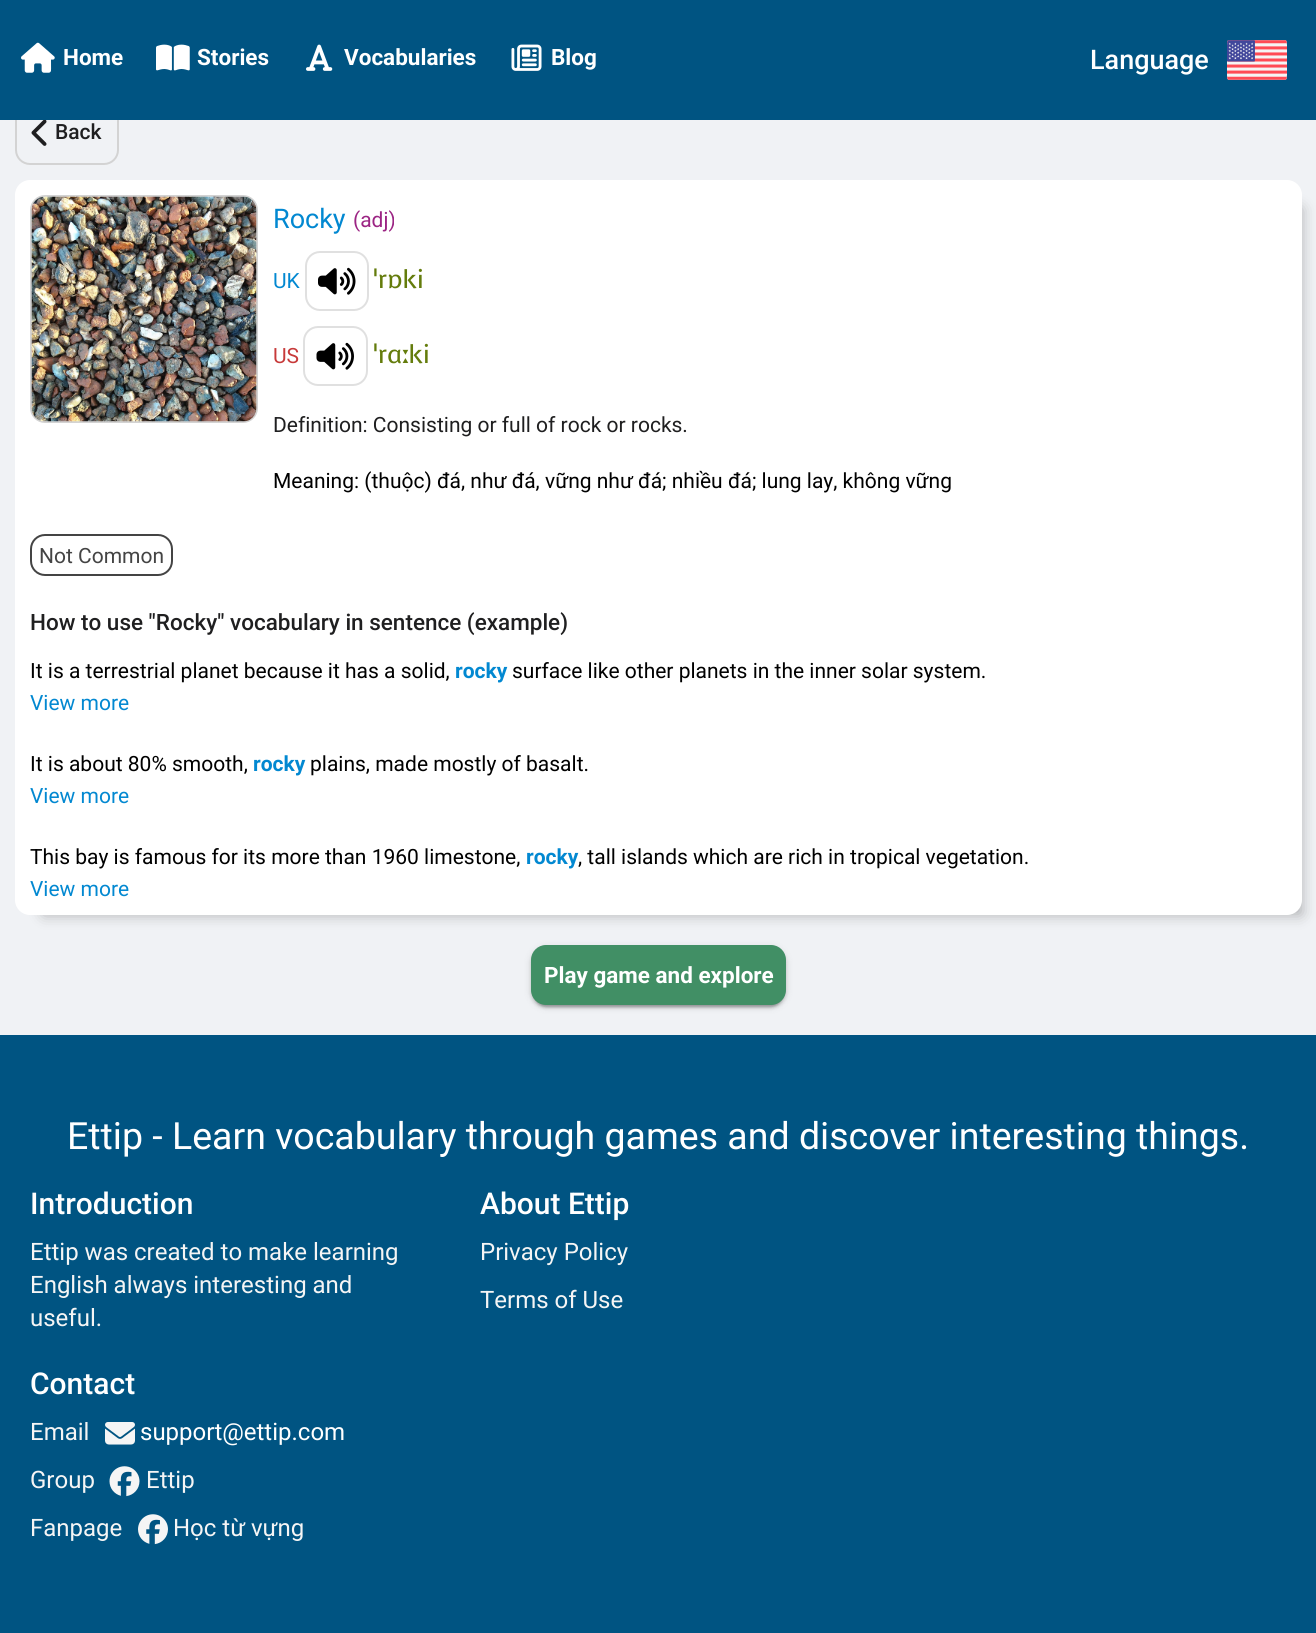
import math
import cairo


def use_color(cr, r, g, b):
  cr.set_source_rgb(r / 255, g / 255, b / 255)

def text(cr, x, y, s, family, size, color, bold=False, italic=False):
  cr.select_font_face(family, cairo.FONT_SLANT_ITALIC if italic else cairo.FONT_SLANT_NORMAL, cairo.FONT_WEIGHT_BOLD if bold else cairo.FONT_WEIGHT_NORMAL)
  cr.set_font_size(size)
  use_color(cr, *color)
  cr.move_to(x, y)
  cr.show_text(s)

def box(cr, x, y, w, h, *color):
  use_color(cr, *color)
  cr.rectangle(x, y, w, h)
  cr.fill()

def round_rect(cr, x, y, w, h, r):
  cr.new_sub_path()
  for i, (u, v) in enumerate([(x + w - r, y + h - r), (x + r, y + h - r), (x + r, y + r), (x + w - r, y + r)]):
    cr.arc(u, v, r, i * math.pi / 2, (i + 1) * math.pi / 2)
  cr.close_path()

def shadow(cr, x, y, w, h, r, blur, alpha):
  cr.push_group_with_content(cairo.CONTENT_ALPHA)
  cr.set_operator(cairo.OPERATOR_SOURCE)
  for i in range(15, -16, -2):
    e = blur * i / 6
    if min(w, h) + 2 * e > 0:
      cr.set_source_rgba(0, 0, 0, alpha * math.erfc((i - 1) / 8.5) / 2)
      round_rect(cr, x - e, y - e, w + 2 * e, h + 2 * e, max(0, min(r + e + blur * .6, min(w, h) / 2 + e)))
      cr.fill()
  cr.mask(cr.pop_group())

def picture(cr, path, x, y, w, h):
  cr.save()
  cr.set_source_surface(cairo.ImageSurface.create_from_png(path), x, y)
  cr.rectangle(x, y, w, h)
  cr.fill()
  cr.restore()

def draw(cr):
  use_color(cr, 240, 242, 245)
  cr.paint()
  round_rect(cr, 16, 103, 102, 61, 14)
  use_color(cr, 211, 211, 211)
  cr.stroke()
  box(cr, 0, 0, 1316, 120, 0, 84, 130)
  picture(cr, "img_01.png", 21, 42, 34, 31)
  picture(cr, "img_02.png", 156, 44, 34, 27)
  picture(cr, "img_03.png", 306, 44, 27, 27)
  picture(cr, "img_04.png", 511, 44, 31, 27)
  picture(cr, "img_05.png", 1227, 40, 60, 40)
  picture(cr, "img_06.png", 31, 120, 16, 26)
  use_color(cr, 0, 0, 0)
  shadow(cr, 44, 209, 1257, 705, 0, 7.5, 0.3)
  use_color(cr, 255, 255, 255)
  round_rect(cr, 15, 180, 1287, 735, 15)
  cr.fill()
  round_rect(cr, 31, 196, 226, 226, 14)
  use_color(cr, 211, 211, 211)
  cr.stroke()
  picture(cr, "img_07.png", 31, 196, 226, 226)
  round_rect(cr, 306, 252, 62, 58, 14)
  use_color(cr, 224, 224, 224)
  cr.stroke()
  picture(cr, "img_08.png", 318, 267, 38, 28)
  round_rect(cr, 304, 327, 63, 58, 14)
  cr.stroke()
  picture(cr, "img_09.png", 316, 342, 38, 28)
  round_rect(cr, 31, 535, 141, 40, 14)
  use_color(cr, 68, 68, 68)
  cr.stroke()
  use_color(cr, 0, 0, 0)
  shadow(cr, 531, 947, 255, 60, 15, 4, 0.12)
  shadow(cr, 531, 948, 255, 60, 15, 1.5, 0.14)
  shadow(cr, 534, 953, 249, 54, 12, 1, 0.2)
  use_color(cr, 65, 143, 101)
  round_rect(cr, 531, 945, 255, 60, 15)
  cr.fill()
  box(cr, 0, 1035, 1316, 598, 0, 84, 130)
  picture(cr, "img_10.png", 105, 1422, 30, 23)
  picture(cr, "img_11.png", 109, 1466, 31, 31)
  picture(cr, "img_12.png", 138, 1514, 30, 31)
  text(cr, 63, 65, "Home", "Roboto", 22.5, (255, 255, 255), bold=True)
  text(cr, 197, 65, "Stories", "Roboto", 22.5, (255, 255, 255), bold=True)
  text(cr, 344, 65, "Vocabularies", "Roboto", 22.5, (255, 255, 255), bold=True)
  text(cr, 551, 65, "Blog", "Roboto", 22.5, (255, 255, 255), bold=True)
  text(cr, 1090, 69, "Language", "Roboto Medium", 27, (255, 255, 255))
  text(cr, 55, 139, "Back", "Roboto Medium", 21, (31, 31, 32))
  text(cr, 273, 228, "Rocky", "Roboto", 27, (2, 136, 209))
  text(cr, 353, 227, "(adj)", "Roboto", 21, (156, 37, 132))
  text(cr, 273, 288, "UK", "Roboto", 21, (2, 136, 209))
  text(cr, 373, 288, "ˈrɒki", "Voces", 25.5, (100, 124, 12))
  text(cr, 273, 363, "US", "Roboto", 21, (199, 58, 58))
  text(cr, 373, 363, "ˈrɑːki", "Voces", 25.5, (100, 124, 12))
  text(cr, 273, 432, "Definition: Consisting or full of rock or rocks.", "Roboto", 21, (31, 31, 32))
  text(cr, 273, 488, "Meaning: (thuộc) đá, như đá, vững như đá; nhiều đá; lung lay, không vững", "Roboto", 21, (0, 0, 0))
  text(cr, 39, 563, "Not Common", "Roboto", 21, (68, 68, 68))
  text(cr, 30, 630, "How to use \"Rocky\" vocabulary in sentence (example)", "Roboto Medium", 22.5, (31, 31, 32))
  text(cr, 30, 678, "It is a terrestrial planet because it has a solid,", "Roboto", 21, (0, 0, 0))
  text(cr, 455, 678, "rocky", "Roboto", 21, (2, 136, 209), bold=True)
  text(cr, 512, 678, "surface like other planets in the inner solar system.", "Roboto", 21, (0, 0, 0))
  text(cr, 30, 710, "View more", "Roboto", 21, (2, 136, 209))
  text(cr, 30, 771, "It is about 80% smooth,", "Roboto", 21, (0, 0, 0))
  text(cr, 253, 771, "rocky", "Roboto", 21, (2, 136, 209), bold=True)
  text(cr, 310, 771, "plains, made mostly of basalt.", "Roboto", 21, (0, 0, 0))
  text(cr, 30, 803, "View more", "Roboto", 21, (2, 136, 209))
  text(cr, 30, 864, "This bay is famous for its more than 1960 limestone,", "Roboto", 21, (0, 0, 0))
  text(cr, 526, 864, "rocky", "Roboto", 21, (2, 136, 209), bold=True)
  text(cr, 578, 864, ", tall islands which are rich in tropical vegetation.", "Roboto", 21, (0, 0, 0))
  text(cr, 30, 896, "View more", "Roboto", 21, (2, 136, 209))
  text(cr, 544, 983, "Play game and explore", "Roboto", 22.5, (255, 255, 255), bold=True)
  text(cr, 67, 1149, "Ettip - Learn vocabulary through games and discover interesting things.", "Roboto", 37.5, (255, 255, 255))
  text(cr, 30, 1214, "Introduction", "Roboto Medium", 30, (255, 255, 255))
  text(cr, 30, 1260, "Ettip was created to make learning", "Roboto", 24, (245, 245, 245))
  text(cr, 30, 1293, "English always interesting and", "Roboto", 24, (245, 245, 245))
  text(cr, 30, 1326, "useful.", "Roboto", 24, (245, 245, 245))
  text(cr, 480, 1214, "About Ettip", "Roboto Medium", 30, (255, 255, 255))
  text(cr, 480, 1260, "Privacy Policy", "Roboto", 24, (245, 245, 245))
  text(cr, 480, 1308, "Terms of Use", "Roboto", 24, (245, 245, 245))
  text(cr, 30, 1394, "Contact", "Roboto Medium", 30, (255, 255, 255))
  text(cr, 30, 1440, "Email", "Roboto", 24, (245, 245, 245))
  text(cr, 140, 1440, "support@ettip.com", "Roboto", 24, (255, 255, 255))
  text(cr, 30, 1488, "Group", "Roboto", 24, (245, 245, 245))
  text(cr, 146, 1488, "Ettip", "Roboto", 24, (245, 245, 245))
  text(cr, 30, 1536, "Fanpage", "Roboto", 24, (245, 245, 245))
  text(cr, 173, 1536, "Học từ vựng", "Roboto", 24, (245, 245, 245))


surface = cairo.ImageSurface(cairo.FORMAT_RGB24, 1316, 1633)
cr = cairo.Context(surface)
options = cairo.FontOptions()
options.set_hint_metrics(cairo.HINT_METRICS_OFF)
options.set_hint_style(cairo.HINT_STYLE_NONE)
cr.set_font_options(options)
cr.set_miter_limit(4)
draw(cr)
surface.write_to_png("out.png")
